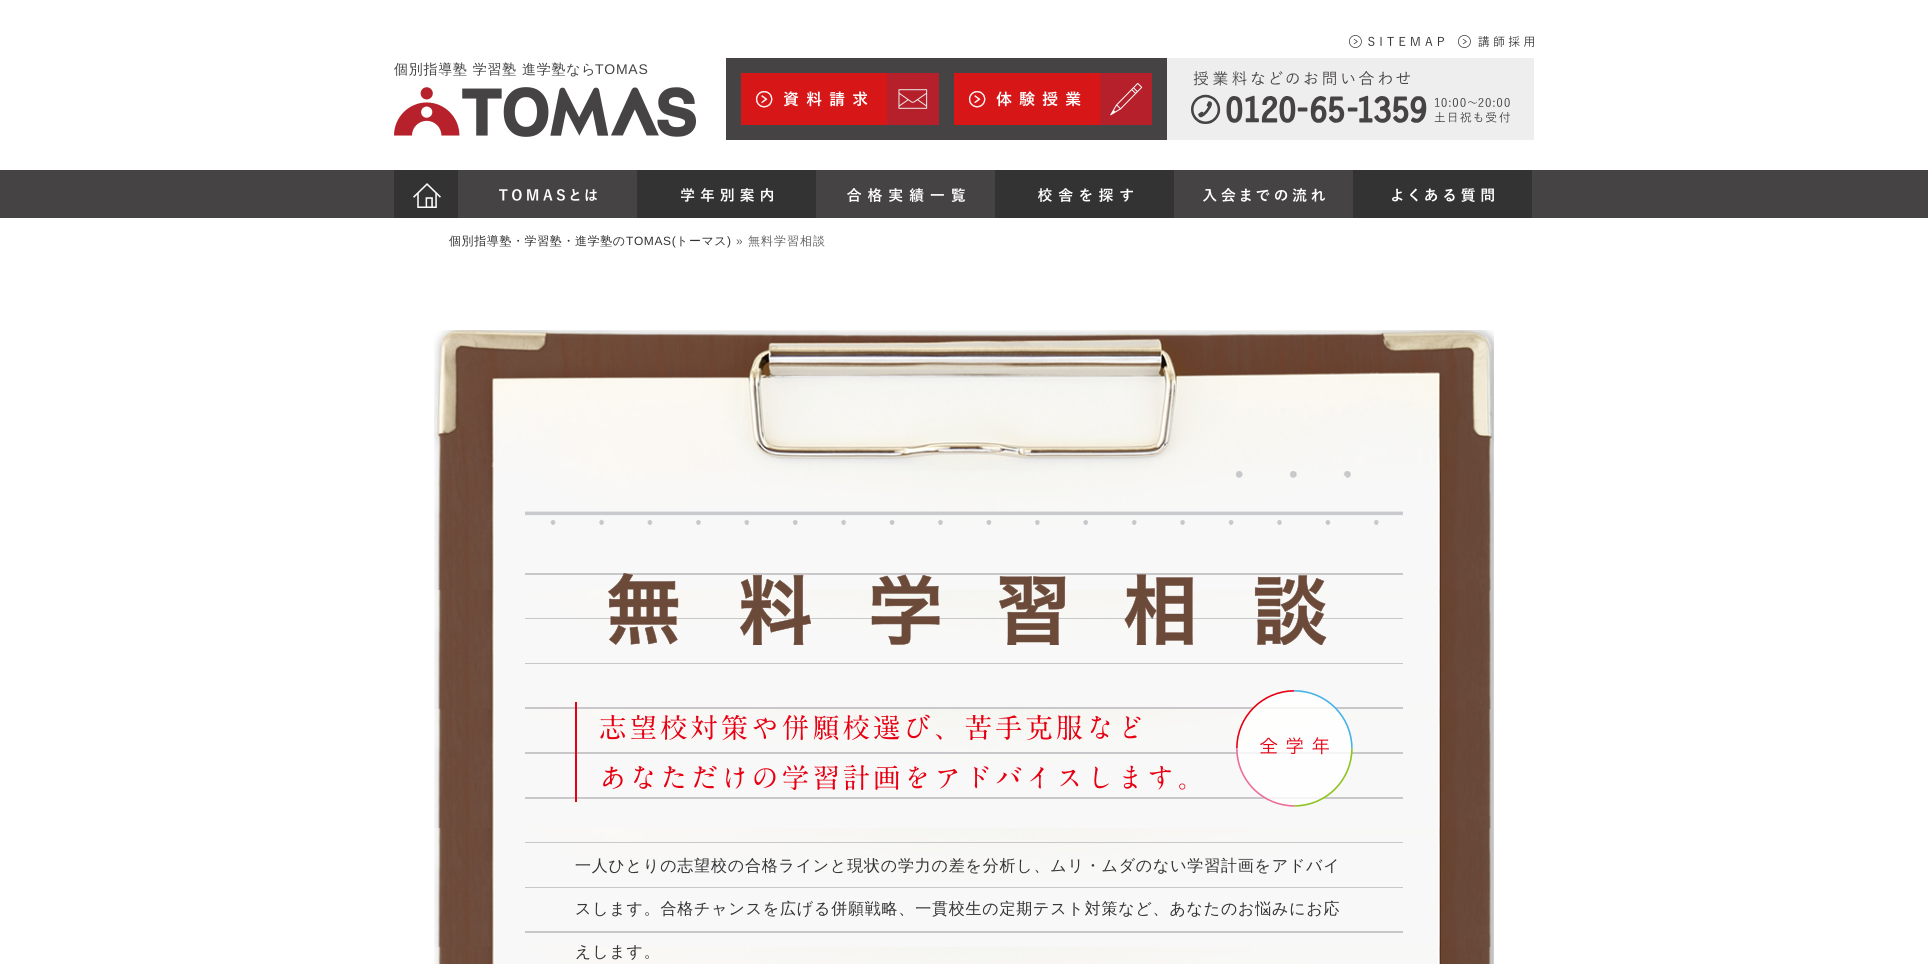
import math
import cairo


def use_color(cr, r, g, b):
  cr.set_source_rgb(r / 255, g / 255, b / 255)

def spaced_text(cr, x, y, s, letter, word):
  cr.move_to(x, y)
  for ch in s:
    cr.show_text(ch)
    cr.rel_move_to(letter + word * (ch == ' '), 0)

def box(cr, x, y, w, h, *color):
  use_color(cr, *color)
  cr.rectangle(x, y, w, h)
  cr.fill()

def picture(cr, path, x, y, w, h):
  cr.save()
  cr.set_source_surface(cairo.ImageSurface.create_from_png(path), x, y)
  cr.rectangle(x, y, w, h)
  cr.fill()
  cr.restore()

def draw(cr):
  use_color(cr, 255, 255, 255)
  cr.paint()
  picture(cr, "img_01.png", 1349, 35, 95, 13)
  picture(cr, "img_02.png", 1458, 35, 76, 13)
  picture(cr, "img_03.png", 394, 87, 302, 50)
  box(cr, 726, 58, 441, 82, 70, 67, 68)
  picture(cr, "img_04.png", 741, 73, 198, 52)
  picture(cr, "img_05.png", 954, 73, 198, 52)
  box(cr, 1167, 58, 367, 82, 238, 238, 238)
  picture(cr, "img_06.png", 1191, 71, 319, 53)
  box(cr, 0, 170, 1928, 48, 70, 67, 68)
  box(cr, 394, 170, 64, 48, 51, 51, 51)
  picture(cr, "img_07.png", 413, 183, 28, 25)
  picture(cr, "img_08.png", 499, 189, 98, 12)
  box(cr, 637, 170, 179, 48, 51, 51, 51)
  picture(cr, "img_09.png", 681, 188, 92, 14)
  picture(cr, "img_10.png", 847, 188, 118, 14)
  box(cr, 995, 170, 179, 48, 51, 51, 51)
  picture(cr, "img_11.png", 1038, 188, 95, 14)
  picture(cr, "img_12.png", 1203, 188, 122, 14)
  box(cr, 1353, 170, 179, 48, 51, 51, 51)
  picture(cr, "img_13.png", 1392, 188, 102, 14)
  picture(cr, "img_14.png", 434, 330, 1060, 141)
  picture(cr, "img_15.png", 434, 471, 1060, 493)
  picture(cr, "img_16.png", 525, 471, 878, 54)
  box(cr, 525, 573, 878, 2, 200, 200, 203)
  box(cr, 525, 618, 878, 1, 200, 200, 203)
  box(cr, 525, 663, 878, 1, 200, 200, 203)
  box(cr, 525, 707, 878, 2, 200, 200, 203)
  box(cr, 525, 752, 878, 2, 200, 200, 203)
  box(cr, 525, 797, 878, 2, 200, 200, 203)
  box(cr, 525, 842, 878, 1, 200, 200, 203)
  box(cr, 525, 887, 878, 1, 200, 200, 203)
  box(cr, 525, 931, 878, 2, 200, 200, 203)
  picture(cr, "img_17.png", 608, 573, 719, 72)
  box(cr, 575, 702, 2, 100, 230, 0, 18)
  picture(cr, "img_18.png", 1236, 690, 117, 117)
  cr.select_font_face("WenQuanYi Zen Hei Medium")
  cr.set_font_size(14)
  use_color(cr, 68, 68, 68)
  spaced_text(cr, 394, 74, "個別指導塾 学習塾 進学塾なら", 0.75, 0)
  cr.select_font_face("Liberation Sans")
  spaced_text(cr, 595, 74, "TOMAS", 0.75, 0)
  cr.select_font_face("WenQuanYi Zen Hei Medium")
  cr.set_font_size(12)
  use_color(cr, 51, 51, 51)
  spaced_text(cr, 449, 245, "個別指導塾・学習塾・進学塾の", 0.6, 0)
  cr.select_font_face("Liberation Sans")
  spaced_text(cr, 626, 245, "TOMAS(", 0.6, 0)
  cr.select_font_face("WenQuanYi Zen Hei Medium")
  spaced_text(cr, 676, 245, "トーマス", 0.6, 0)
  cr.select_font_face("Liberation Sans")
  spaced_text(cr, 727, 245, ")", 0.6, 0)
  use_color(cr, 102, 102, 102)
  spaced_text(cr, 736, 245, "»", 1, 0)
  cr.select_font_face("WenQuanYi Zen Hei Medium")
  spaced_text(cr, 748, 245, "無料学習相談", 1, 0)
  cr.select_font_face("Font")
  cr.set_font_size(27.55)
  use_color(cr, 230, 0, 18)
  spaced_text(cr, 599, 738, "志望校対策や併願校選び、苦手克服など", 2.9, 0)
  spaced_text(cr, 599, 788, "あなただけの学習計画をアドバイスします。", 2.9, 0)
  cr.select_font_face("WenQuanYi Zen Hei Medium")
  cr.set_font_size(16)
  use_color(cr, 51, 51, 51)
  spaced_text(cr, 575, 871, "一人ひとりの志望校の合格ラインと現状の学力の差を分析し、ムリ・ムダのない学習計画をアドバイ", 0.8, 0)
  spaced_text(cr, 575, 914, "スします。合格チャンスを広げる併願戦略、一貫校生の定期テスト対策など、あなたのお悩みにお応", 0.8, 0)
  spaced_text(cr, 575, 957, "えします。", 0.8, 0)


surface = cairo.ImageSurface(cairo.FORMAT_RGB24, 1928, 964)
cr = cairo.Context(surface)
options = cairo.FontOptions()
options.set_hint_metrics(cairo.HINT_METRICS_OFF)
options.set_hint_style(cairo.HINT_STYLE_NONE)
cr.set_font_options(options)
cr.set_miter_limit(4)
draw(cr)
surface.write_to_png("out.png")
